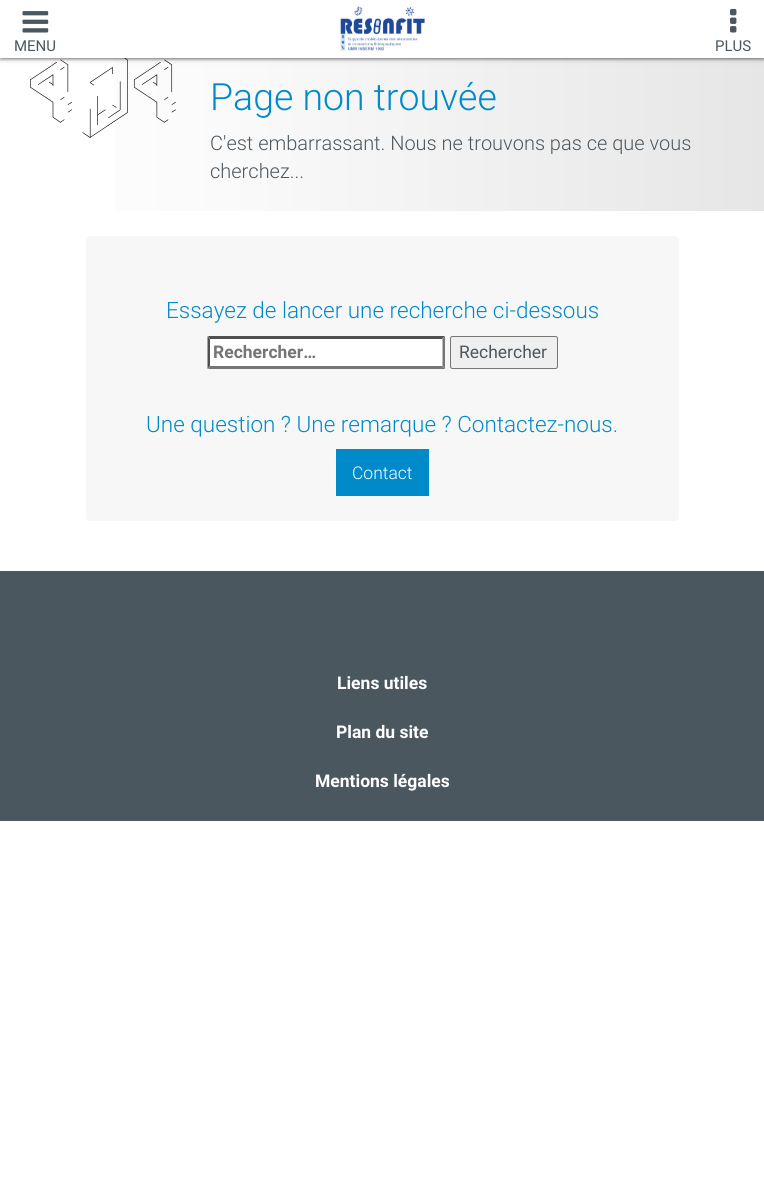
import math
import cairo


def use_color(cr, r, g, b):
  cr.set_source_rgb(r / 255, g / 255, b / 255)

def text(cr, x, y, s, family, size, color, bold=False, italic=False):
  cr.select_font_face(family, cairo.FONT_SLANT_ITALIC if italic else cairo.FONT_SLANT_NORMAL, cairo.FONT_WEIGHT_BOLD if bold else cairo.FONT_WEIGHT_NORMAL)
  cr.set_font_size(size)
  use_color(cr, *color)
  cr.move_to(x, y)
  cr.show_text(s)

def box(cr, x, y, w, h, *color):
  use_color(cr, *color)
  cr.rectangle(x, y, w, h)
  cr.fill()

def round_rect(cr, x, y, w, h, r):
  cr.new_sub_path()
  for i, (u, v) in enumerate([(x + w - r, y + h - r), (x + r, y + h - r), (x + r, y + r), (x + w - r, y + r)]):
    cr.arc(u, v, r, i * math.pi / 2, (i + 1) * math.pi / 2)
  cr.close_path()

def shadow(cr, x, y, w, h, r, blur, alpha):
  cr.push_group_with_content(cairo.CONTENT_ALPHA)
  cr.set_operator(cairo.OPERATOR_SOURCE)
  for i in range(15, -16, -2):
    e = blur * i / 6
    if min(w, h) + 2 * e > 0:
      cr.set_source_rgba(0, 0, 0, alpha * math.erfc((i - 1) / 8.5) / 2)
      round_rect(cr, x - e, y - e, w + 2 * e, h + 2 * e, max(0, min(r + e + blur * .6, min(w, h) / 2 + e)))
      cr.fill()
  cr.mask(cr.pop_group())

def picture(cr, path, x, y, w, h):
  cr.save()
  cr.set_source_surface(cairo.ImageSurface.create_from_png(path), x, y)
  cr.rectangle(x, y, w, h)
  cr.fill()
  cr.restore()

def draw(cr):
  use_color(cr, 255, 255, 255)
  cr.paint()
  gradient = cairo.LinearGradient(0, 131, 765, 131)
  gradient.add_color_stop_rgba(0, 1, 1, 1, 1)
  gradient.add_color_stop_rgba(0.3, 0.98, 0.98, 0.98, 1)
  gradient.add_color_stop_rgba(1, 0.902, 0.902, 0.902, 1)
  cr.set_source(gradient)
  cr.rectangle(115, 58, 649, 153)
  cr.fill()
  picture(cr, "img_04.png", 30, 58, 146, 80)
  use_color(cr, 0, 0, 0)
  shadow(cr, 0, 1, 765, 58, 0, 3, 0.2)
  shadow(cr, 3, 6, 760, 53, 0, 0.5, 0.14)
  shadow(cr, 0, 3, 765, 57, 0, 1, 0.2)
  box(cr, 0, 0, 764, 58, 255, 255, 255)
  picture(cr, "img_01.png", 22, 11, 27, 22)
  picture(cr, "img_02.png", 340, 6, 85, 46)
  picture(cr, "img_03.png", 730, 8, 7, 25)
  use_color(cr, 247, 247, 247)
  round_rect(cr, 86, 236, 593, 285, 4)
  cr.fill()
  box(cr, 208, 336, 237, 33, 255, 255, 255)
  use_color(cr, 79, 79, 79)
  cr.new_path()
  cr.move_to(208, 336)
  cr.line_to(445, 336)
  cr.line_to(442, 339)
  cr.line_to(210, 339)
  cr.close_path()
  cr.fill()
  use_color(cr, 118, 118, 118)
  cr.new_path()
  cr.move_to(445, 336)
  cr.line_to(445, 369)
  cr.line_to(442.5, 366)
  cr.line_to(442.5, 339)
  cr.close_path()
  cr.fill()
  cr.new_path()
  cr.move_to(445, 369)
  cr.line_to(208, 369)
  cr.line_to(210, 366)
  cr.line_to(442, 366)
  cr.close_path()
  cr.fill()
  use_color(cr, 79, 79, 79)
  cr.new_path()
  cr.move_to(207.5, 369)
  cr.line_to(207.5, 336)
  cr.line_to(210, 339)
  cr.line_to(210, 366)
  cr.close_path()
  cr.fill()
  use_color(cr, 239, 239, 239)
  round_rect(cr, 450.5, 336.5, 107, 32, 2)
  cr.fill_preserve()
  use_color(cr, 118, 118, 118)
  cr.set_line_width(1)
  cr.stroke()
  box(cr, 336, 449, 93, 47, 0, 138, 201)
  box(cr, 0, 571, 764, 250, 75, 87, 95)
  text(cr, 14, 51, "MENU", "Roboto", 15, (75, 87, 95))
  text(cr, 715, 51, "PLUS", "Roboto", 15, (75, 87, 95))
  text(cr, 210, 110, "Page non trouvée", "Roboto Light", 37.5, (0, 138, 201))
  text(cr, 210, 150, "C'est embarrassant. Nous ne trouvons pas ce que vous", "Roboto Light", 20, (75, 87, 95))
  text(cr, 210, 178, "cherchez...", "Roboto Light", 20, (75, 87, 95))
  text(cr, 166, 318, "Essayez de lancer une recherche ci-dessous", "Roboto Light", 22.5, (0, 138, 201))
  text(cr, 213, 358, "Rechercher…", "Roboto", 17.5, (117, 117, 117), bold=True)
  text(cr, 459, 358, "Rechercher", "Roboto", 17.5, (75, 87, 95))
  text(cr, 146, 432, "Une question ? Une remarque ? Contactez-nous.", "Roboto Light", 22.5, (0, 138, 201))
  text(cr, 352, 479, "Contact", "Roboto Light", 17.5, (255, 255, 255))
  text(cr, 337, 689, "Liens utiles", "Roboto", 17.5, (255, 255, 255), bold=True)
  text(cr, 336, 738, "Plan du site", "Roboto", 17.5, (255, 255, 255), bold=True)
  text(cr, 315, 787, "Mentions légales", "Roboto", 17.5, (255, 255, 255), bold=True)


surface = cairo.ImageSurface(cairo.FORMAT_RGB24, 764, 1194)
cr = cairo.Context(surface)
options = cairo.FontOptions()
options.set_hint_metrics(cairo.HINT_METRICS_OFF)
options.set_hint_style(cairo.HINT_STYLE_NONE)
cr.set_font_options(options)
cr.set_miter_limit(4)
draw(cr)
surface.write_to_png("out.png")
